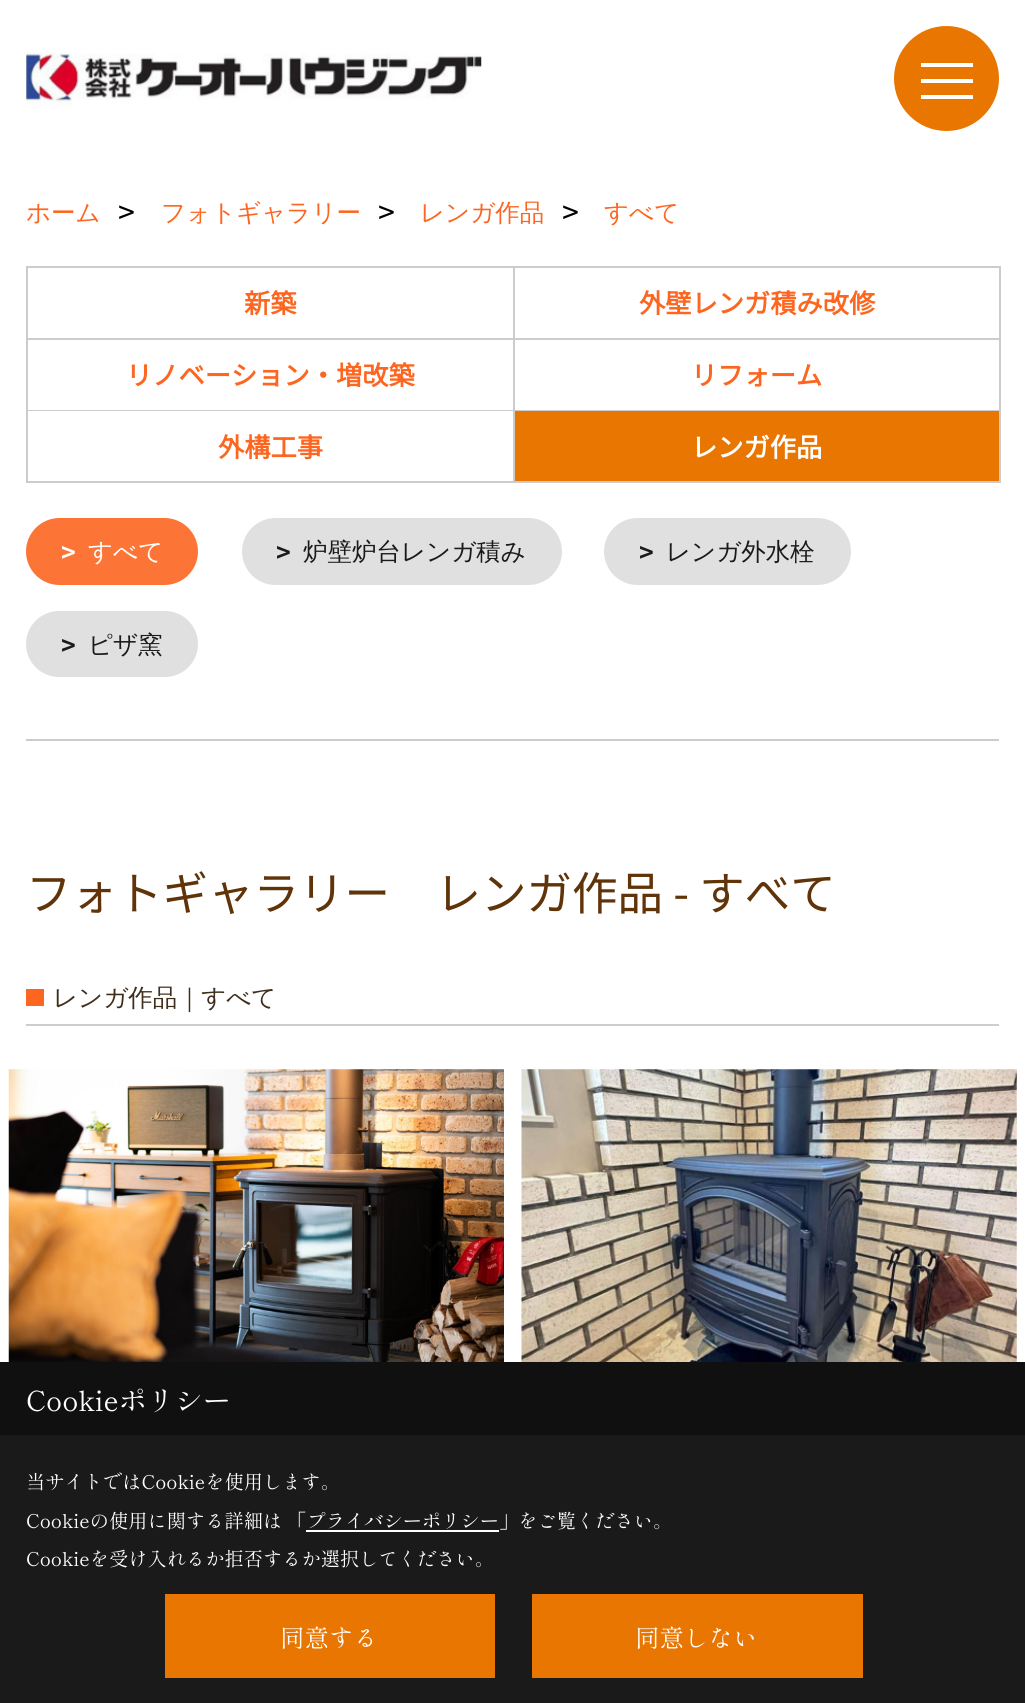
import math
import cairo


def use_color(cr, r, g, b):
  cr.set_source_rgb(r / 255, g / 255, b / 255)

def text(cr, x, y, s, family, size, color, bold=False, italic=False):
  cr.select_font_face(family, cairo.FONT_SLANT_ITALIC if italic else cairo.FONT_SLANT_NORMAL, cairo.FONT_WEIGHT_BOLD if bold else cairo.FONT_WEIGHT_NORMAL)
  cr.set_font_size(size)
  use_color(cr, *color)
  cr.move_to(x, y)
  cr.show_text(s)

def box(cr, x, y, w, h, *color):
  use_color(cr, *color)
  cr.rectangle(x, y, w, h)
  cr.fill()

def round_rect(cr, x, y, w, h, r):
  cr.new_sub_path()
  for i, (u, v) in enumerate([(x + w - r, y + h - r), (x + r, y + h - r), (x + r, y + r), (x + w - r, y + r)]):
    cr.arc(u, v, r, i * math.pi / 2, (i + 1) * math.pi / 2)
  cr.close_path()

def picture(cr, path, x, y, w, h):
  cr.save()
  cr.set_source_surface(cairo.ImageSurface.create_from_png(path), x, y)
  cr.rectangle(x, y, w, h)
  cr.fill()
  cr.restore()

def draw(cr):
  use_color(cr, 255, 255, 255)
  cr.paint()
  picture(cr, "img_01.png", 26, 52, 456, 56)
  use_color(cr, 232, 118, 0)
  cr.arc(946.5, 78.5, 52.5, 0, 2 * math.pi)
  cr.fill()
  box(cr, 921, 63, 52, 4, 255, 255, 255)
  box(cr, 921, 79, 52, 4, 255, 255, 255)
  box(cr, 921, 95, 52, 4, 255, 255, 255)
  box(cr, 26, 266, 975, 2, 204, 204, 204)
  box(cr, 26, 266, 2, 217, 204, 204, 204)
  box(cr, 513, 268, 2, 215, 204, 204, 204)
  box(cr, 28, 338, 487, 2, 204, 204, 204)
  box(cr, 999, 268, 2, 215, 204, 204, 204)
  box(cr, 515, 338, 486, 2, 204, 204, 204)
  box(cr, 28, 410, 973, 1, 204, 204, 204)
  box(cr, 28, 481, 973, 2, 204, 204, 204)
  box(cr, 515, 411, 484, 70, 232, 118, 0)
  box(cr, 26, 739, 973, 2, 204, 204, 204)
  use_color(cr, 253, 117, 54)
  round_rect(cr, 26, 518, 172, 67, 33.5)
  cr.fill()
  use_color(cr, 224, 224, 224)
  round_rect(cr, 242, 518, 320, 67, 33.5)
  cr.fill()
  round_rect(cr, 604, 518, 247, 67, 33.5)
  cr.fill()
  round_rect(cr, 26, 611, 172, 66, 33)
  cr.fill()
  box(cr, 26, 1024, 973, 2, 204, 205, 205)
  box(cr, 26, 989, 18, 17, 253, 102, 32)
  picture(cr, "img_02.png", 8, 1069, 496, 293)
  picture(cr, "img_03.png", 521, 1069, 496, 293)
  box(cr, 0, 1362, 1025, 73, 16, 16, 16)
  box(cr, 0, 1435, 1025, 268, 26, 26, 26)
  box(cr, 306, 1530, 193, 2, 255, 255, 255)
  box(cr, 165, 1594, 330, 84, 232, 118, 0)
  box(cr, 532, 1594, 331, 84, 232, 118, 0)
  text(cr, 26, 221, "ホーム", "WenQuanYi Zen Hei Medium", 24.5, (253, 102, 32))
  text(cr, 118, 221, ">", "DejaVu Sans Mono", 28, (0, 0, 0))
  text(cr, 161, 221, "フォトギャラリー", "WenQuanYi Zen Hei Medium", 24.5, (253, 102, 32))
  text(cr, 378, 221, ">", "DejaVu Sans Mono", 28, (0, 0, 0))
  text(cr, 420, 221, "レンガ作品", "WenQuanYi Zen Hei Medium", 24.5, (253, 102, 32))
  text(cr, 562, 221, ">", "DejaVu Sans Mono", 28, (0, 0, 0))
  text(cr, 604, 221, "すべて", "WenQuanYi Zen Hei Medium", 24.5, (253, 102, 32))
  text(cr, 244, 313, "新築", "Noto Sans JP", 26.25, (253, 102, 32), bold=True)
  text(cr, 639, 313, "外壁レンガ積み改修", "Noto Sans JP", 26.25, (253, 102, 32), bold=True)
  text(cr, 126, 385, "リノベーション・増改築", "Noto Sans JP", 26.25, (253, 102, 32), bold=True)
  text(cr, 691, 385, "リフォーム", "Noto Sans JP", 26.25, (253, 102, 32), bold=True)
  text(cr, 218, 457, "外構工事", "Noto Sans JP", 26.25, (253, 102, 32), bold=True)
  text(cr, 691, 457, "レンガ作品", "Noto Sans JP", 26.25, (255, 255, 255), bold=True)
  text(cr, 61, 560, ">", "DejaVu Sans Mono", 24.5, (255, 255, 255), bold=True)
  text(cr, 88, 560, "すべて", "WenQuanYi Zen Hei Medium", 24.5, (255, 255, 255))
  text(cr, 276, 560, ">", "DejaVu Sans Mono", 24.5, (26, 26, 26), bold=True)
  text(cr, 303, 560, "炉壁炉台レンガ積み", "WenQuanYi Zen Hei Medium", 24.5, (26, 26, 26))
  text(cr, 639, 560, ">", "DejaVu Sans Mono", 24.5, (26, 26, 26), bold=True)
  text(cr, 666, 560, "レンガ外水栓", "WenQuanYi Zen Hei Medium", 24.5, (26, 26, 26))
  text(cr, 61, 653, ">", "DejaVu Sans Mono", 24.5, (26, 26, 26), bold=True)
  text(cr, 88, 653, "ピザ窯", "WenQuanYi Zen Hei Medium", 24.5, (26, 26, 26))
  text(cr, 26, 910, "フォトギャラリー　レンガ作品 - すべて", "Noto Sans JP Thin", 45.5, (96, 51, 9))
  text(cr, 53, 1006, "レンガ作品｜すべて", "WenQuanYi Zen Hei Medium", 24.5, (64, 46, 29))
  text(cr, 26, 1411, "Cookieポリシー", "Shippori Mincho", 28, (255, 255, 255))
  text(cr, 26, 1489, "当サイトではCookieを使用します。", "Shippori Mincho", 19.25, (255, 255, 255))
  text(cr, 26, 1528, "Cookieの使用に関する詳細は 「プライバシーポリシー」をご覧ください。", "Shippori Mincho", 19.25, (255, 255, 255))
  text(cr, 26, 1566, "Cookieを受け入れるか拒否するか選択してください。", "Shippori Mincho", 19.25, (255, 255, 255))
  text(cr, 280, 1647, "同意する", "Shippori Mincho", 24.5, (255, 255, 255))
  text(cr, 635, 1647, "同意しない", "Shippori Mincho", 24.5, (255, 255, 255))


surface = cairo.ImageSurface(cairo.FORMAT_RGB24, 1025, 1703)
cr = cairo.Context(surface)
options = cairo.FontOptions()
options.set_hint_metrics(cairo.HINT_METRICS_OFF)
options.set_hint_style(cairo.HINT_STYLE_NONE)
cr.set_font_options(options)
cr.set_miter_limit(4)
draw(cr)
surface.write_to_png("out.png")
